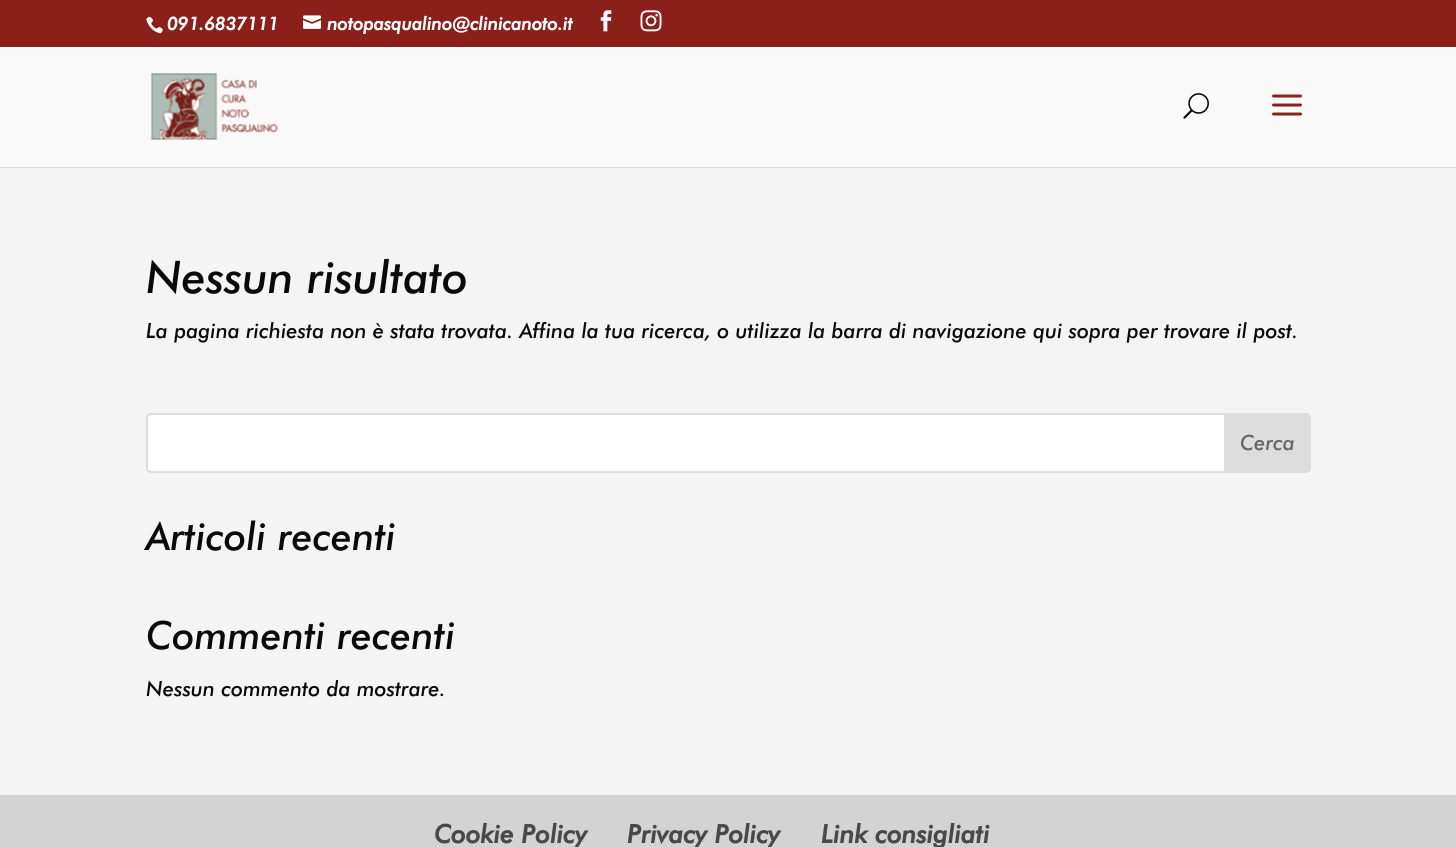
import math
import cairo


def use_color(cr, r, g, b):
  cr.set_source_rgb(r / 255, g / 255, b / 255)

def text(cr, x, y, s, family, size, color, bold=False, italic=False):
  cr.select_font_face(family, cairo.FONT_SLANT_ITALIC if italic else cairo.FONT_SLANT_NORMAL, cairo.FONT_WEIGHT_BOLD if bold else cairo.FONT_WEIGHT_NORMAL)
  cr.set_font_size(size)
  use_color(cr, *color)
  cr.move_to(x, y)
  cr.show_text(s)

def box(cr, x, y, w, h, *color):
  use_color(cr, *color)
  cr.rectangle(x, y, w, h)
  cr.fill()

def round_rect(cr, x, y, w, h, r):
  cr.new_sub_path()
  for i, (u, v) in enumerate([(x + w - r, y + h - r), (x + r, y + h - r), (x + r, y + r), (x + w - r, y + r)]):
    cr.arc(u, v, r, i * math.pi / 2, (i + 1) * math.pi / 2)
  cr.close_path()

def picture(cr, path, x, y, w, h):
  cr.save()
  cr.set_source_surface(cairo.ImageSurface.create_from_png(path), x, y)
  cr.rectangle(x, y, w, h)
  cr.fill()
  cr.restore()

def draw(cr):
  use_color(cr, 139, 32, 26)
  cr.paint()
  picture(cr, "img_01.png", 146, 16, 17, 18)
  picture(cr, "img_02.png", 303, 15, 18, 14)
  picture(cr, "img_03.png", 600, 10, 12, 22)
  picture(cr, "img_04.png", 640, 10, 22, 22)
  box(cr, 0, 167, 1456, 628, 244, 244, 244)
  cr.set_source_rgba(0, 0, 0, 0.1)
  cr.new_path()
  cr.move_to(0, 166)
  cr.line_to(0, 168)
  cr.line_to(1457, 168)
  cr.line_to(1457, 48)
  cr.line_to(1456, 48)
  cr.line_to(1456, 166)
  cr.close_path()
  cr.fill()
  box(cr, 0, 47, 1456, 120, 249, 249, 249)
  picture(cr, "img_05.png", 151, 73, 127, 67)
  picture(cr, "img_06.png", 1183, 93, 26, 26)
  picture(cr, "img_07.png", 1272, 94, 30, 22)
  use_color(cr, 255, 255, 255)
  round_rect(cr, 147, 414, 1163, 58, 4)
  cr.fill_preserve()
  use_color(cr, 221, 221, 221)
  cr.stroke()
  cr.new_path()
  cr.move_to(1225, 414)
  cr.line_to(1306, 414)
  cr.curve_to(1308, 414, 1310, 416, 1310, 418)
  cr.line_to(1310, 468)
  cr.curve_to(1310, 470, 1308, 472, 1306, 472)
  cr.line_to(1225, 472)
  cr.close_path()
  cr.fill_preserve()
  cr.stroke()
  box(cr, 0, 795, 1456, 52, 211, 211, 211)
  text(cr, 167, 30, "091.6837111", "Futura", 18, (255, 255, 255), bold=True, italic=True)
  text(cr, 327, 30, "notopasqualino@clinicanoto.it", "Futura", 18, (255, 255, 255), bold=True, italic=True)
  text(cr, 146, 293, "Nessun risultato", "Futura Medium", 45, (10, 10, 10), italic=True)
  text(cr, 146, 338, "La pagina richiesta non è stata trovata. Affina la tua ricerca, o utilizza la barra di navigazione qui sopra per trovare il post.", "Futura Medium", 21, (10, 10, 10), italic=True)
  text(cr, 1240, 450, "Cerca", "Futura Medium", 21, (102, 102, 102), italic=True)
  text(cr, 146, 550, "Articoli recenti", "Futura Medium", 39, (10, 10, 10), italic=True)
  text(cr, 146, 649, "Commenti recenti", "Futura Medium", 39, (10, 10, 10), italic=True)
  text(cr, 146, 696, "Nessun commento da mostrare.", "Futura Medium", 21, (10, 10, 10), italic=True)
  text(cr, 434, 843, "Cookie Policy", "Futura", 25.5, (73, 73, 73), bold=True, italic=True)
  text(cr, 627, 843, "Privacy Policy", "Futura", 25.5, (73, 73, 73), bold=True, italic=True)
  text(cr, 821, 843, "Link consigliati", "Futura", 25.5, (73, 73, 73), bold=True, italic=True)


surface = cairo.ImageSurface(cairo.FORMAT_RGB24, 1456, 847)
cr = cairo.Context(surface)
options = cairo.FontOptions()
options.set_hint_metrics(cairo.HINT_METRICS_OFF)
options.set_hint_style(cairo.HINT_STYLE_NONE)
cr.set_font_options(options)
cr.set_miter_limit(4)
draw(cr)
surface.write_to_png("out.png")
